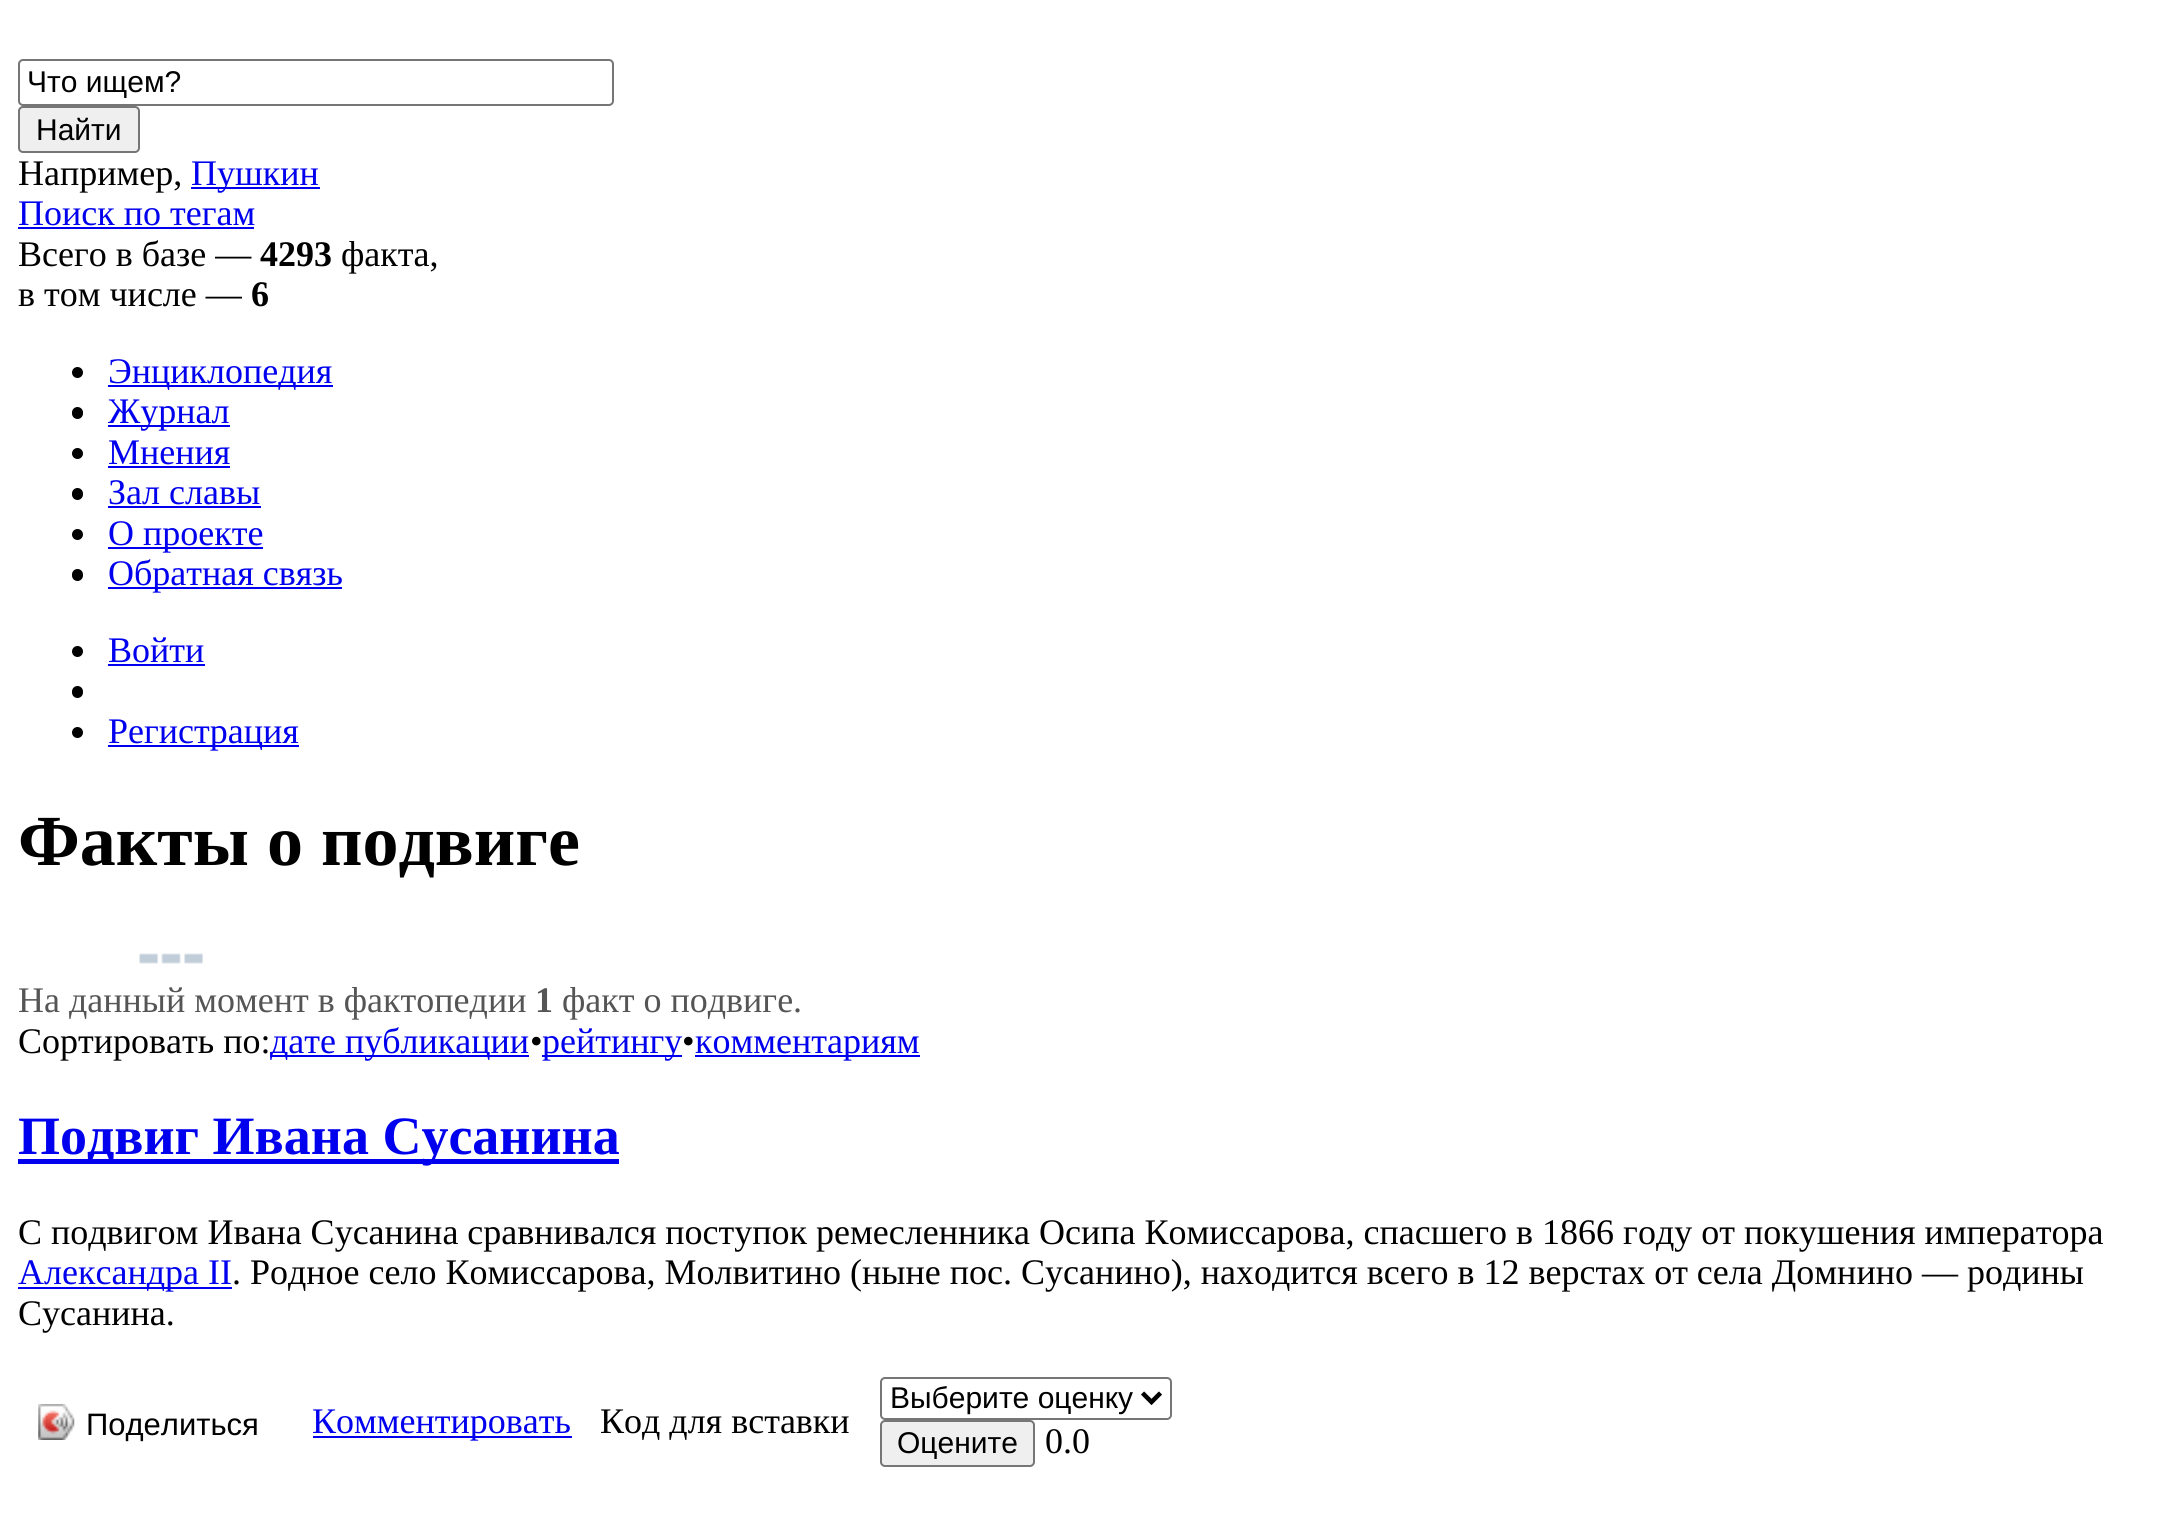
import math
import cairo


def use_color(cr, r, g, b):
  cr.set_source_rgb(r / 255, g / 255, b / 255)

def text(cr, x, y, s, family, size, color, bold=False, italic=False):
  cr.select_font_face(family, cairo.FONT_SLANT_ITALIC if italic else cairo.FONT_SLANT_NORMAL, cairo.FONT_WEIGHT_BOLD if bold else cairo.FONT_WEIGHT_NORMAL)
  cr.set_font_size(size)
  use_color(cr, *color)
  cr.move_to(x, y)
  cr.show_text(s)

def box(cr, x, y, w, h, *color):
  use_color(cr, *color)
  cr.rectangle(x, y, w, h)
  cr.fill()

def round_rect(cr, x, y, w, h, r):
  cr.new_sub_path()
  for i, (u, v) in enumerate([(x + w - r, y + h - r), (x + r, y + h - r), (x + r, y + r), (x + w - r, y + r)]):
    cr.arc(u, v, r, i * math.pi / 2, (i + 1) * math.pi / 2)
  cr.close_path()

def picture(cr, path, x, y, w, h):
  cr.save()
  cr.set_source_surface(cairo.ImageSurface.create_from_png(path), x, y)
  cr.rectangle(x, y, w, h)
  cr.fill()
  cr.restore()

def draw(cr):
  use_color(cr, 255, 255, 255)
  cr.paint()
  round_rect(cr, 19, 60, 594, 45, 4)
  use_color(cr, 118, 118, 118)
  cr.stroke()
  use_color(cr, 239, 239, 239)
  round_rect(cr, 19, 107, 120, 45, 4)
  cr.fill_preserve()
  use_color(cr, 118, 118, 118)
  cr.stroke()
  box(cr, 191, 187, 129, 2, 0, 0, 238)
  box(cr, 18, 227, 236, 2, 0, 0, 238)
  use_color(cr, 0, 0, 0)
  cr.arc(77.5, 372.5, 5.5, 0, 2 * math.pi)
  cr.fill()
  box(cr, 108, 385, 225, 2, 0, 0, 238)
  use_color(cr, 0, 0, 0)
  round_rect(cr, 72, 407, 11, 12, 5.5)
  cr.fill()
  box(cr, 108, 425, 122, 2, 0, 0, 238)
  use_color(cr, 0, 0, 0)
  cr.arc(77.5, 453.5, 5.5, 0, 2 * math.pi)
  cr.fill()
  box(cr, 108, 466, 122, 2, 0, 0, 238)
  use_color(cr, 0, 0, 0)
  round_rect(cr, 72, 488, 11, 12, 5.5)
  cr.fill()
  box(cr, 108, 506, 153, 2, 0, 0, 238)
  use_color(cr, 0, 0, 0)
  cr.arc(77.5, 534.5, 5.5, 0, 2 * math.pi)
  cr.fill()
  box(cr, 108, 547, 155, 2, 0, 0, 238)
  use_color(cr, 0, 0, 0)
  round_rect(cr, 72, 569, 11, 12, 5.5)
  cr.fill()
  box(cr, 108, 587, 234, 2, 0, 0, 238)
  use_color(cr, 0, 0, 0)
  cr.arc(77.5, 651.5, 5.5, 0, 2 * math.pi)
  cr.fill()
  box(cr, 108, 664, 97, 2, 0, 0, 238)
  use_color(cr, 0, 0, 0)
  round_rect(cr, 72, 686, 11, 12, 5.5)
  cr.fill()
  cr.arc(77.5, 732.5, 5.5, 0, 2 * math.pi)
  cr.fill()
  box(cr, 108, 745, 191, 2, 0, 0, 238)
  picture(cr, "img_01.png", 139, 953, 64, 11)
  box(cr, 270, 1055, 259, 2, 0, 0, 238)
  box(cr, 542, 1055, 140, 2, 0, 0, 238)
  box(cr, 695, 1055, 225, 2, 0, 0, 238)
  box(cr, 18, 1159, 601, 5, 0, 0, 238)
  box(cr, 18, 1287, 214, 2, 0, 0, 238)
  picture(cr, "img_02.png", 38, 1404, 37, 36)
  picture(cr, "img_03.png", 38, 1404, 37, 36)
  box(cr, 313, 1436, 259, 2, 0, 0, 238)
  round_rect(cr, 881, 1378, 290, 41, 4)
  use_color(cr, 118, 118, 118)
  cr.stroke()
  cr.new_path()
  cr.move_to(1142.5, 1393)
  cr.line_to(1151.5, 1402)
  cr.line_to(1160.5, 1393)
  use_color(cr, 0, 0, 0)
  cr.set_line_width(4.5)
  cr.stroke()
  use_color(cr, 239, 239, 239)
  round_rect(cr, 881, 1421, 153, 45, 4)
  cr.fill_preserve()
  use_color(cr, 118, 118, 118)
  cr.set_line_width(2)
  cr.stroke()
  text(cr, 27, 92, "Что ищем?", "Liberation Sans", 30, (0, 0, 0))
  text(cr, 36, 140, "Найти", "Liberation Sans", 30, (0, 0, 0))
  text(cr, 18, 185, "Например,", "Liberation Serif", 36, (0, 0, 0))
  text(cr, 191, 185, "Пушкин", "Liberation Serif", 36, (0, 0, 238))
  text(cr, 18, 225, "Поиск по тегам", "Liberation Serif", 36, (0, 0, 238))
  text(cr, 18, 266, "Всего в базе —", "Liberation Serif", 36, (0, 0, 0))
  text(cr, 260, 266, "4293", "Liberation Serif", 36, (0, 0, 0), bold=True)
  text(cr, 341, 266, "факта,", "Liberation Serif", 36, (0, 0, 0))
  text(cr, 18, 306, "в том числе —", "Liberation Serif", 36, (0, 0, 0))
  text(cr, 251, 306, "6", "Liberation Serif", 36, (0, 0, 0), bold=True)
  text(cr, 108, 383, "Энциклопедия", "Liberation Serif", 36, (0, 0, 238))
  text(cr, 108, 423, "Журнал", "Liberation Serif", 36, (0, 0, 238))
  text(cr, 108, 464, "Мнения", "Liberation Serif", 36, (0, 0, 238))
  text(cr, 108, 504, "Зал славы", "Liberation Serif", 36, (0, 0, 238))
  text(cr, 108, 545, "О проекте", "Liberation Serif", 36, (0, 0, 238))
  text(cr, 108, 585, "Обратная связь", "Liberation Serif", 36, (0, 0, 238))
  text(cr, 108, 662, "Войти", "Liberation Serif", 36, (0, 0, 238))
  text(cr, 108, 743, "Регистрация", "Liberation Serif", 36, (0, 0, 238))
  text(cr, 18, 865, "Факты о подвиге", "Liberation Serif", 72, (0, 0, 0), bold=True)
  text(cr, 18, 1012, "На данный момент в фактопедии", "Liberation Serif", 36, (85, 85, 85))
  text(cr, 535, 1012, "1", "Liberation Serif", 36, (85, 85, 85), bold=True)
  text(cr, 562, 1012, "факт о подвиге.", "Liberation Serif", 36, (85, 85, 85))
  text(cr, 18, 1053, "Сортировать по:", "Liberation Serif", 36, (0, 0, 0))
  text(cr, 270, 1053, "дате публикации", "Liberation Serif", 36, (0, 0, 238))
  text(cr, 530, 1053, "•", "Liberation Serif", 36, (0, 0, 0))
  text(cr, 542, 1053, "рейтингу", "Liberation Serif", 36, (0, 0, 238))
  text(cr, 682, 1053, "•", "Liberation Serif", 36, (0, 0, 0))
  text(cr, 695, 1053, "комментариям", "Liberation Serif", 36, (0, 0, 238))
  text(cr, 18, 1154, "Подвиг Ивана Сусанина", "Liberation Serif", 54, (0, 0, 238), bold=True)
  text(cr, 18, 1244, "С подвигом Ивана Сусанина сравнивался поступок ремесленника Осипа Комиссарова, спасшего в 1866 году от покушения императора", "Liberation Serif", 36, (0, 0, 0))
  text(cr, 18, 1284, "Александра II", "Liberation Serif", 36, (0, 0, 238))
  text(cr, 232, 1284, ". Родное село Комиссарова, Молвитино (ныне пос. Сусанино), находится всего в 12 верстах от села Домнино — родины", "Liberation Serif", 36, (0, 0, 0))
  text(cr, 18, 1325, "Сусанина.", "Liberation Serif", 36, (0, 0, 0))
  text(cr, 86, 1435, "Поделиться", "Liberation Sans", 31, (0, 0, 0))
  text(cr, 312, 1433, "Комментировать", "Liberation Serif", 36, (0, 0, 238))
  text(cr, 600, 1433, "Код для вставки", "Liberation Serif", 36, (0, 0, 0))
  text(cr, 890, 1408, "Выберите оценку", "Liberation Sans", 30, (0, 0, 0))
  text(cr, 897, 1453, "Оцените", "Liberation Sans", 30, (0, 0, 0))
  text(cr, 1045, 1453, "0.0", "Liberation Serif", 36, (0, 0, 0))


surface = cairo.ImageSurface(cairo.FORMAT_RGB24, 2168, 1515)
cr = cairo.Context(surface)
options = cairo.FontOptions()
options.set_hint_metrics(cairo.HINT_METRICS_OFF)
options.set_hint_style(cairo.HINT_STYLE_NONE)
cr.set_font_options(options)
cr.set_miter_limit(4)
draw(cr)
surface.write_to_png("out.png")
